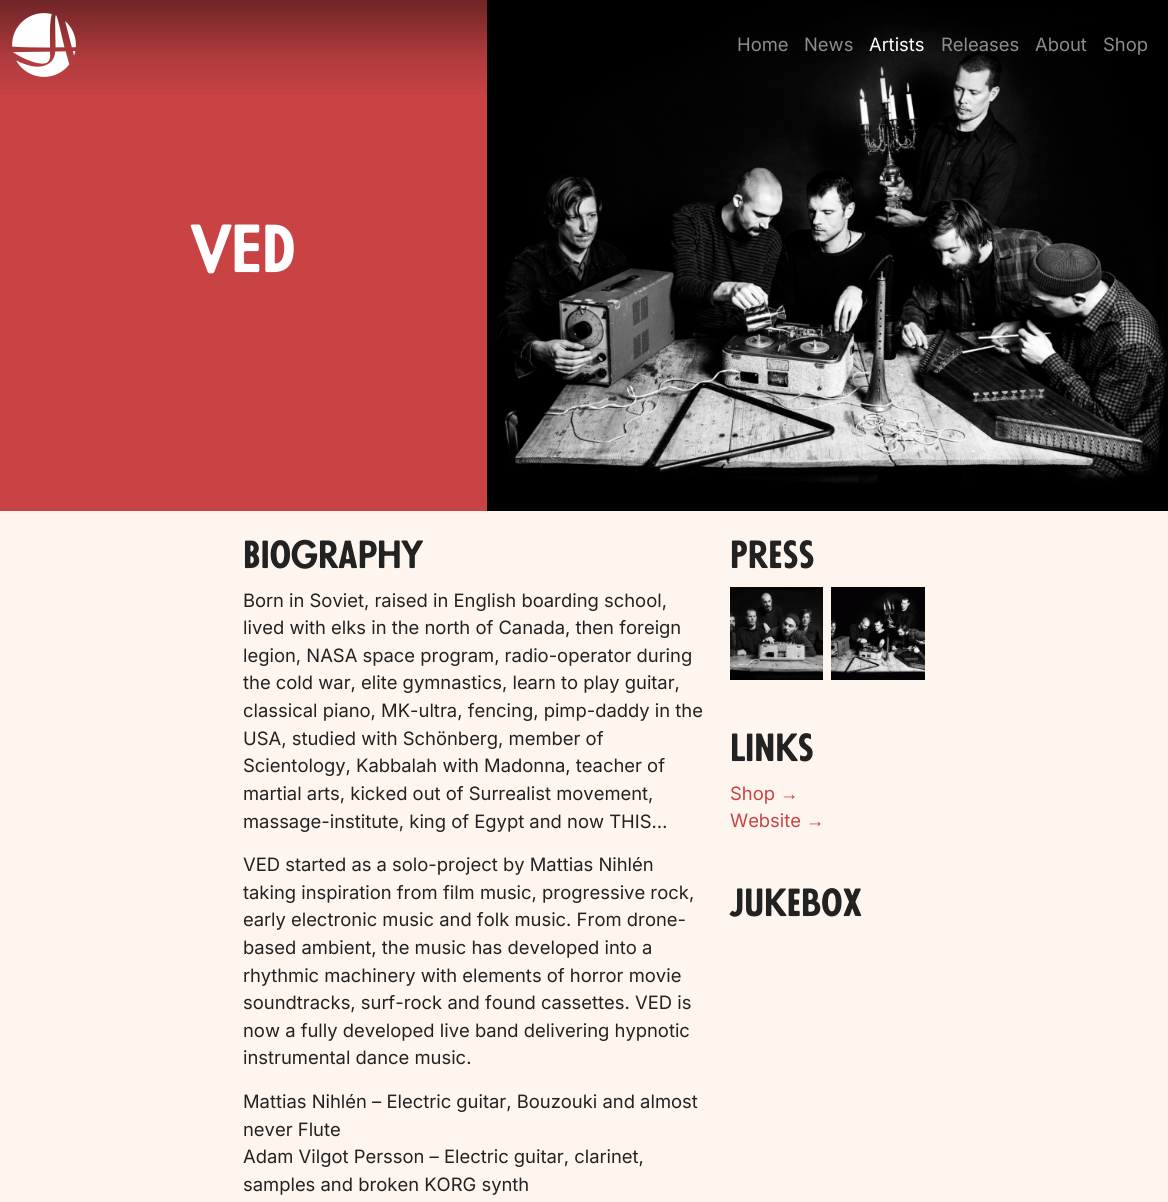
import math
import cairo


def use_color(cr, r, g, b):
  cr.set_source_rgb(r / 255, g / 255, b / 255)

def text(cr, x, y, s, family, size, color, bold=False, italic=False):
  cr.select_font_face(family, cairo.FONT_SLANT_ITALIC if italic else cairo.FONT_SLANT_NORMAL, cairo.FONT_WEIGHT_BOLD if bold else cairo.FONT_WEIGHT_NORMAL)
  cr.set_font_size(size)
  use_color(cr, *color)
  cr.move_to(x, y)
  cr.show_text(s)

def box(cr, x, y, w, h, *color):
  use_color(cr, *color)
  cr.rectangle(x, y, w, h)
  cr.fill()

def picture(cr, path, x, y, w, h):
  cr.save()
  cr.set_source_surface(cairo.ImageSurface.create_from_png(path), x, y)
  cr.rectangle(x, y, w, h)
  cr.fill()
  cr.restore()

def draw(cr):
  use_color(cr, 253, 245, 238)
  cr.paint()
  box(cr, 0, 0, 487, 511, 201, 67, 69)
  picture(cr, "img_02.png", 487, 0, 681, 511)
  gradient = cairo.LinearGradient(584, -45, 584, 135)
  gradient.add_color_stop_rgba(0.2, 0, 0, 0, 0.5)
  gradient.add_color_stop_rgba(0.57, 0, 0, 0, 0.12)
  gradient.add_color_stop_rgba(0.82, 0, 0, 0, 0)
  cr.set_source(gradient)
  cr.rectangle(0, 0, 1000, 95)
  cr.fill()
  picture(cr, "img_01.png", 12, 13, 64, 64)
  picture(cr, "img_03.png", 730, 587, 93, 93)
  picture(cr, "img_04.png", 831, 587, 94, 93)
  text(cr, 737, 51, "Home", "Inter", 18.4, (141, 141, 141))
  text(cr, 804, 51, "News", "Inter", 18.4, (141, 141, 141))
  text(cr, 869, 51, "Artists", "Inter", 18.4, (255, 255, 255))
  text(cr, 941, 51, "Releases", "Inter", 18.4, (141, 141, 141))
  text(cr, 1035, 51, "About", "Inter", 18.4, (141, 141, 141))
  text(cr, 1103, 51, "Shop", "Inter", 18.4, (141, 141, 141))
  text(cr, 191, 272, "VED", "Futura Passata", 63, (255, 255, 255), bold=True)
  text(cr, 243, 568, "Biography", "Futura Passata", 36.5, (34, 34, 34), bold=True)
  text(cr, 243, 607, "Born in Soviet, raised in English boarding school,", "Inter", 18.4, (34, 34, 34))
  text(cr, 243, 634, "lived with elks in the north of Canada, then foreign", "Inter", 18.4, (34, 34, 34))
  text(cr, 243, 662, "legion, NASA space program, radio-operator during", "Inter", 18.4, (34, 34, 34))
  text(cr, 243, 689, "the cold war, elite gymnastics, learn to play guitar,", "Inter", 18.4, (34, 34, 34))
  text(cr, 243, 717, "classical piano, MK-ultra, fencing, pimp-daddy in the", "Inter", 18.4, (34, 34, 34))
  text(cr, 243, 745, "USA, studied with Schönberg, member of", "Inter", 18.4, (34, 34, 34))
  text(cr, 243, 772, "Scientology, Kabbalah with Madonna, teacher of", "Inter", 18.4, (34, 34, 34))
  text(cr, 243, 800, "martial arts, kicked out of Surrealist movement,", "Inter", 18.4, (34, 34, 34))
  text(cr, 243, 828, "massage-institute, king of Egypt and now THIS…", "Inter", 18.4, (34, 34, 34))
  text(cr, 243, 871, "VED started as a solo-project by Mattias Nihlén", "Inter", 18.4, (34, 34, 34))
  text(cr, 243, 899, "taking inspiration from film music, progressive rock,", "Inter", 18.4, (34, 34, 34))
  text(cr, 243, 926, "early electronic music and folk music. From drone-", "Inter", 18.4, (34, 34, 34))
  text(cr, 243, 954, "based ambient, the music has developed into a", "Inter", 18.4, (34, 34, 34))
  text(cr, 243, 982, "rhythmic machinery with elements of horror movie", "Inter", 18.4, (34, 34, 34))
  text(cr, 243, 1009, "soundtracks, surf-rock and found cassettes. VED is", "Inter", 18.4, (34, 34, 34))
  text(cr, 243, 1037, "now a fully developed live band delivering hypnotic", "Inter", 18.4, (34, 34, 34))
  text(cr, 243, 1064, "instrumental dance music.", "Inter", 18.4, (34, 34, 34))
  text(cr, 243, 1108, "Mattias Nihlén – Electric guitar, Bouzouki and almost", "Inter", 18.4, (34, 34, 34))
  text(cr, 243, 1136, "never Flute", "Inter", 18.4, (34, 34, 34))
  text(cr, 243, 1163, "Adam Vilgot Persson – Electric guitar, clarinet,", "Inter", 18.4, (34, 34, 34))
  text(cr, 243, 1191, "samples and broken KORG synth", "Inter", 18.4, (34, 34, 34))
  text(cr, 730, 568, "Press", "Futura Passata", 36.5, (34, 34, 34), bold=True)
  text(cr, 730, 761, "Links", "Futura Passata", 36.5, (34, 34, 34), bold=True)
  text(cr, 730, 800, "Shop", "Inter", 18.4, (201, 67, 69))
  text(cr, 780, 800, "→", "Liberation Sans", 18.4, (201, 67, 69))
  text(cr, 730, 827, "Website", "Inter", 18.4, (201, 67, 69))
  text(cr, 806, 827, "→", "Liberation Sans", 18.4, (201, 67, 69))
  text(cr, 730, 916, "Jukebox", "Futura Passata", 36.5, (34, 34, 34), bold=True)


surface = cairo.ImageSurface(cairo.FORMAT_RGB24, 1168, 1202)
cr = cairo.Context(surface)
options = cairo.FontOptions()
options.set_hint_metrics(cairo.HINT_METRICS_OFF)
options.set_hint_style(cairo.HINT_STYLE_NONE)
cr.set_font_options(options)
cr.set_miter_limit(4)
draw(cr)
surface.write_to_png("out.png")
